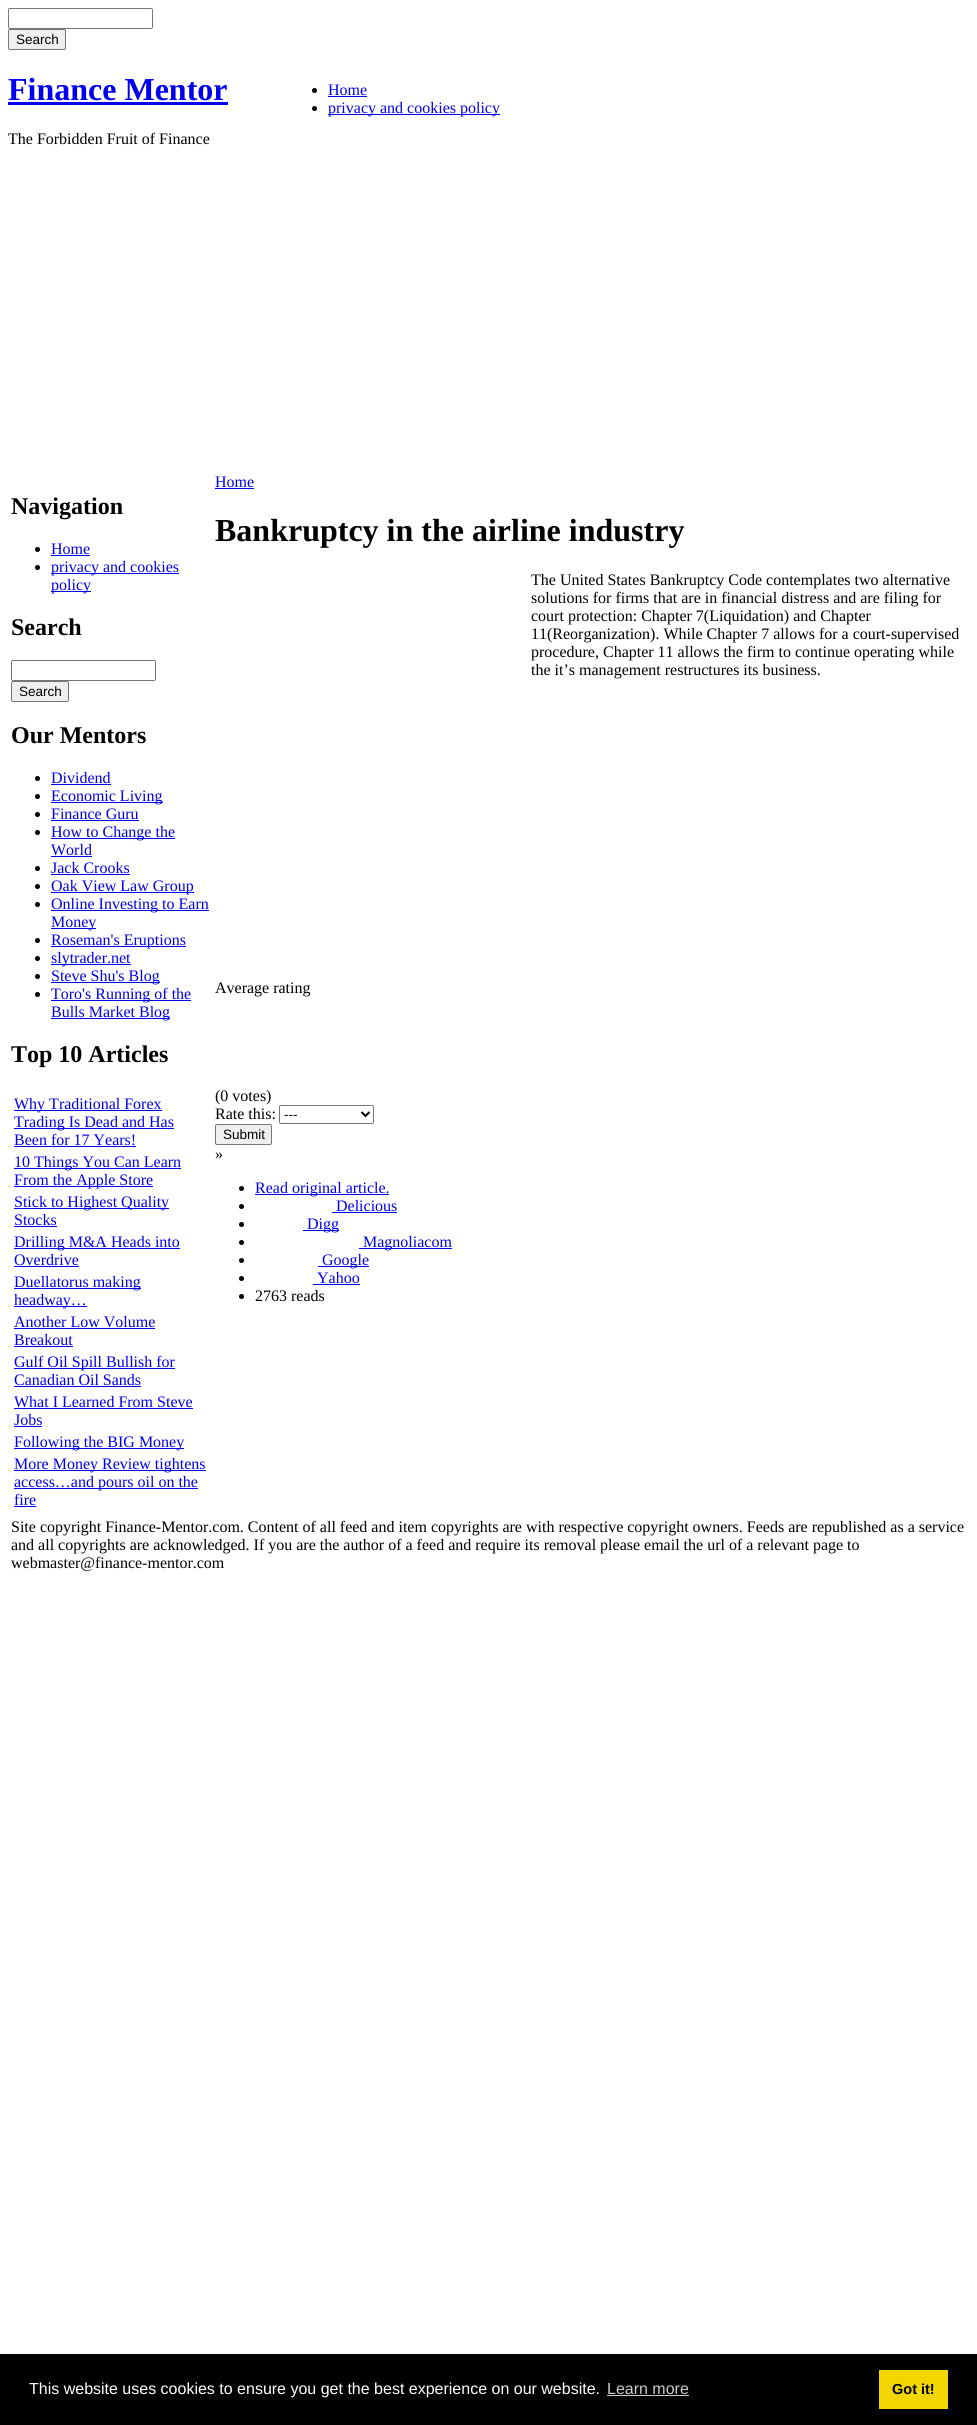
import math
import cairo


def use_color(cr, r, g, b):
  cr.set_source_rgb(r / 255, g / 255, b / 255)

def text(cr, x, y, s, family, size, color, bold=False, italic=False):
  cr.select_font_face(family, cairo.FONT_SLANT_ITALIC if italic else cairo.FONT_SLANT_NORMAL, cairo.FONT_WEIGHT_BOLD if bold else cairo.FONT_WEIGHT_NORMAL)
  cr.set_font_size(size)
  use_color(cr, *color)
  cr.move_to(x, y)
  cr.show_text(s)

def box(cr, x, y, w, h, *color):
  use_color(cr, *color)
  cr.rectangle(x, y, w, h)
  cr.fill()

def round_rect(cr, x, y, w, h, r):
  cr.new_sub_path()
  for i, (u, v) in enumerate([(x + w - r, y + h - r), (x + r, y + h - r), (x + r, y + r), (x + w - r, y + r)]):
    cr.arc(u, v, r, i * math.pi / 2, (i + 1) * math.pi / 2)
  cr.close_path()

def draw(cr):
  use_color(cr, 255, 255, 255)
  cr.paint()
  round_rect(cr, 8.5, 8.5, 144, 20, 1.5)
  use_color(cr, 118, 118, 118)
  cr.set_line_width(1)
  cr.stroke()
  use_color(cr, 239, 239, 239)
  round_rect(cr, 8.5, 29.5, 57, 20, 1.5)
  cr.fill_preserve()
  use_color(cr, 118, 118, 118)
  cr.stroke()
  box(cr, 8, 102, 220, 3, 0, 0, 238)
  use_color(cr, 0, 0, 0)
  cr.arc(314.5, 90.5, 2.5, 0, 2 * math.pi)
  cr.fill()
  box(cr, 328, 96, 39, 1, 0, 0, 238)
  use_color(cr, 0, 0, 0)
  cr.arc(314.5, 108.5, 2.5, 0, 2 * math.pi)
  cr.fill()
  box(cr, 328, 114, 172, 1, 0, 0, 238)
  use_color(cr, 0, 0, 0)
  cr.arc(37.5, 549.5, 2.5, 0, 2 * math.pi)
  cr.fill()
  box(cr, 51, 555, 39, 1, 0, 0, 238)
  use_color(cr, 0, 0, 0)
  cr.arc(37.5, 567.5, 2.5, 0, 2 * math.pi)
  cr.fill()
  box(cr, 51, 573, 128, 1, 0, 0, 238)
  box(cr, 51, 591, 40, 1, 0, 0, 238)
  round_rect(cr, 11.5, 660.5, 144, 20, 1.5)
  use_color(cr, 118, 118, 118)
  cr.stroke()
  use_color(cr, 239, 239, 239)
  round_rect(cr, 11.5, 681.5, 57, 20, 1.5)
  cr.fill_preserve()
  use_color(cr, 118, 118, 118)
  cr.stroke()
  use_color(cr, 0, 0, 0)
  cr.arc(37.5, 778.5, 2.5, 0, 2 * math.pi)
  cr.fill()
  box(cr, 51, 784, 60, 1, 0, 0, 238)
  use_color(cr, 0, 0, 0)
  cr.arc(37.5, 796.5, 2.5, 0, 2 * math.pi)
  cr.fill()
  box(cr, 51, 802, 112, 1, 0, 0, 238)
  use_color(cr, 0, 0, 0)
  cr.arc(37.5, 814.5, 2.5, 0, 2 * math.pi)
  cr.fill()
  box(cr, 51, 820, 88, 1, 0, 0, 238)
  use_color(cr, 0, 0, 0)
  cr.arc(37.5, 832.5, 2.5, 0, 2 * math.pi)
  cr.fill()
  box(cr, 51, 838, 124, 1, 0, 0, 238)
  box(cr, 51, 856, 41, 1, 0, 0, 238)
  use_color(cr, 0, 0, 0)
  cr.arc(37.5, 868.5, 2.5, 0, 2 * math.pi)
  cr.fill()
  box(cr, 51, 874, 79, 1, 0, 0, 238)
  use_color(cr, 0, 0, 0)
  cr.arc(37.5, 886.5, 2.5, 0, 2 * math.pi)
  cr.fill()
  box(cr, 51, 892, 143, 1, 0, 0, 238)
  use_color(cr, 0, 0, 0)
  cr.arc(37.5, 904.5, 2.5, 0, 2 * math.pi)
  cr.fill()
  box(cr, 51, 910, 158, 1, 0, 0, 238)
  box(cr, 51, 928, 45, 1, 0, 0, 238)
  use_color(cr, 0, 0, 0)
  cr.arc(37.5, 940.5, 2.5, 0, 2 * math.pi)
  cr.fill()
  box(cr, 51, 946, 135, 1, 0, 0, 238)
  use_color(cr, 0, 0, 0)
  cr.arc(37.5, 958.5, 2.5, 0, 2 * math.pi)
  cr.fill()
  box(cr, 51, 964, 80, 1, 0, 0, 238)
  use_color(cr, 0, 0, 0)
  cr.arc(37.5, 976.5, 2.5, 0, 2 * math.pi)
  cr.fill()
  box(cr, 51, 982, 109, 1, 0, 0, 238)
  use_color(cr, 0, 0, 0)
  cr.arc(37.5, 994.5, 2.5, 0, 2 * math.pi)
  cr.fill()
  box(cr, 51, 1000, 140, 1, 0, 0, 238)
  box(cr, 51, 1018, 119, 1, 0, 0, 238)
  box(cr, 14, 1110, 148, 1, 0, 0, 238)
  box(cr, 14, 1128, 160, 1, 0, 0, 238)
  box(cr, 14, 1146, 122, 1, 0, 0, 238)
  box(cr, 14, 1168, 167, 1, 0, 0, 238)
  box(cr, 14, 1186, 139, 1, 0, 0, 238)
  box(cr, 14, 1208, 155, 1, 0, 0, 238)
  box(cr, 14, 1226, 43, 1, 0, 0, 238)
  box(cr, 14, 1248, 166, 1, 0, 0, 238)
  box(cr, 14, 1266, 65, 1, 0, 0, 238)
  box(cr, 14, 1288, 127, 1, 0, 0, 238)
  box(cr, 14, 1306, 73, 1, 0, 0, 238)
  box(cr, 14, 1328, 141, 1, 0, 0, 238)
  box(cr, 14, 1346, 59, 1, 0, 0, 238)
  box(cr, 14, 1368, 161, 1, 0, 0, 238)
  box(cr, 14, 1386, 127, 1, 0, 0, 238)
  box(cr, 14, 1408, 179, 1, 0, 0, 238)
  box(cr, 14, 1426, 28, 1, 0, 0, 238)
  box(cr, 14, 1448, 170, 1, 0, 0, 238)
  box(cr, 14, 1470, 192, 1, 0, 0, 238)
  box(cr, 14, 1488, 184, 1, 0, 0, 238)
  box(cr, 14, 1506, 22, 1, 0, 0, 238)
  box(cr, 215, 488, 39, 1, 0, 0, 238)
  round_rect(cr, 279.5, 1105.5, 94, 18, 1.5)
  use_color(cr, 118, 118, 118)
  cr.stroke()
  cr.new_path()
  cr.move_to(361.5, 1112)
  cr.line_to(365.5, 1116)
  cr.line_to(369.5, 1112)
  use_color(cr, 0, 0, 0)
  cr.set_line_width(2)
  cr.stroke()
  use_color(cr, 239, 239, 239)
  round_rect(cr, 215.5, 1124.5, 56, 20, 1.5)
  cr.fill_preserve()
  use_color(cr, 118, 118, 118)
  cr.set_line_width(1)
  cr.stroke()
  use_color(cr, 0, 0, 0)
  cr.arc(241.5, 1188.5, 2.5, 0, 2 * math.pi)
  cr.fill()
  box(cr, 255, 1194, 134, 1, 0, 0, 238)
  use_color(cr, 0, 0, 0)
  cr.arc(241.5, 1206.5, 2.5, 0, 2 * math.pi)
  cr.fill()
  box(cr, 332, 1212, 65, 1, 0, 0, 238)
  use_color(cr, 0, 0, 0)
  cr.arc(241.5, 1224.5, 2.5, 0, 2 * math.pi)
  cr.fill()
  box(cr, 303, 1230, 36, 1, 0, 0, 238)
  use_color(cr, 0, 0, 0)
  cr.arc(241.5, 1242.5, 2.5, 0, 2 * math.pi)
  cr.fill()
  box(cr, 359, 1248, 93, 1, 0, 0, 238)
  use_color(cr, 0, 0, 0)
  cr.arc(241.5, 1260.5, 2.5, 0, 2 * math.pi)
  cr.fill()
  box(cr, 318, 1266, 51, 1, 0, 0, 238)
  use_color(cr, 0, 0, 0)
  cr.arc(241.5, 1278.5, 2.5, 0, 2 * math.pi)
  cr.fill()
  box(cr, 313, 1284, 47, 1, 0, 0, 238)
  use_color(cr, 0, 0, 0)
  cr.arc(241.5, 1296.5, 2.5, 0, 2 * math.pi)
  cr.fill()
  box(cr, 0, 2354, 977, 71, 0, 0, 0)
  box(cr, 607, 2395, 82, 1, 204, 204, 204)
  box(cr, 879, 2370, 69, 39, 241, 214, 0)
  text(cr, 16, 44, "Search", "Liberation Sans", 13.5, (0, 0, 0))
  text(cr, 8, 100, "Finance Mentor", "Liberation Serif", 32, (0, 0, 238), bold=True)
  text(cr, 8, 144, "The Forbidden Fruit of Finance", "Liberation Serif", 16, (0, 0, 0))
  text(cr, 328, 95, "Home", "Liberation Serif", 16, (0, 0, 238))
  text(cr, 328, 113, "privacy and cookies policy", "Liberation Serif", 16, (0, 0, 238))
  text(cr, 11, 514, "Navigation", "Liberation Serif", 24, (0, 0, 0), bold=True)
  text(cr, 51, 554, "Home", "Liberation Serif", 16, (0, 0, 238))
  text(cr, 51, 572, "privacy and cookies", "Liberation Serif", 16, (0, 0, 238))
  text(cr, 51, 590, "policy", "Liberation Serif", 16, (0, 0, 238))
  text(cr, 11, 635, "Search", "Liberation Serif", 24, (0, 0, 0), bold=True)
  text(cr, 19, 696, "Search", "Liberation Sans", 13.5, (0, 0, 0))
  text(cr, 11, 743, "Our Mentors", "Liberation Serif", 24, (0, 0, 0), bold=True)
  text(cr, 51, 783, "Dividend", "Liberation Serif", 16, (0, 0, 238))
  text(cr, 51, 801, "Economic Living", "Liberation Serif", 16, (0, 0, 238))
  text(cr, 51, 819, "Finance Guru", "Liberation Serif", 16, (0, 0, 238))
  text(cr, 51, 837, "How to Change the", "Liberation Serif", 16, (0, 0, 238))
  text(cr, 51, 855, "World", "Liberation Serif", 16, (0, 0, 238))
  text(cr, 51, 873, "Jack Crooks", "Liberation Serif", 16, (0, 0, 238))
  text(cr, 51, 891, "Oak View Law Group", "Liberation Serif", 16, (0, 0, 238))
  text(cr, 51, 909, "Online Investing to Earn", "Liberation Serif", 16, (0, 0, 238))
  text(cr, 51, 927, "Money", "Liberation Serif", 16, (0, 0, 238))
  text(cr, 51, 945, "Roseman's Eruptions", "Liberation Serif", 16, (0, 0, 238))
  text(cr, 51, 963, "slytrader.net", "Liberation Serif", 16, (0, 0, 238))
  text(cr, 51, 981, "Steve Shu's Blog", "Liberation Serif", 16, (0, 0, 238))
  text(cr, 51, 999, "Toro's Running of the", "Liberation Serif", 16, (0, 0, 238))
  text(cr, 51, 1017, "Bulls Market Blog", "Liberation Serif", 16, (0, 0, 238))
  text(cr, 11, 1062, "Top 10 Articles", "Liberation Serif", 24, (0, 0, 0), bold=True)
  text(cr, 14, 1109, "Why Traditional Forex", "Liberation Serif", 16, (0, 0, 238))
  text(cr, 14, 1127, "Trading Is Dead and Has", "Liberation Serif", 16, (0, 0, 238))
  text(cr, 14, 1145, "Been for 17 Years!", "Liberation Serif", 16, (0, 0, 238))
  text(cr, 14, 1167, "10 Things You Can Learn", "Liberation Serif", 16, (0, 0, 238))
  text(cr, 14, 1185, "From the Apple Store", "Liberation Serif", 16, (0, 0, 238))
  text(cr, 14, 1207, "Stick to Highest Quality", "Liberation Serif", 16, (0, 0, 238))
  text(cr, 14, 1225, "Stocks", "Liberation Serif", 16, (0, 0, 238))
  text(cr, 14, 1247, "Drilling M&A Heads into", "Liberation Serif", 16, (0, 0, 238))
  text(cr, 14, 1265, "Overdrive", "Liberation Serif", 16, (0, 0, 238))
  text(cr, 14, 1287, "Duellatorus making", "Liberation Serif", 16, (0, 0, 238))
  text(cr, 14, 1305, "headway…", "Liberation Serif", 16, (0, 0, 238))
  text(cr, 14, 1327, "Another Low Volume", "Liberation Serif", 16, (0, 0, 238))
  text(cr, 14, 1345, "Breakout", "Liberation Serif", 16, (0, 0, 238))
  text(cr, 14, 1367, "Gulf Oil Spill Bullish for", "Liberation Serif", 16, (0, 0, 238))
  text(cr, 14, 1385, "Canadian Oil Sands", "Liberation Serif", 16, (0, 0, 238))
  text(cr, 14, 1407, "What I Learned From Steve", "Liberation Serif", 16, (0, 0, 238))
  text(cr, 14, 1425, "Jobs", "Liberation Serif", 16, (0, 0, 238))
  text(cr, 14, 1447, "Following the BIG Money", "Liberation Serif", 16, (0, 0, 238))
  text(cr, 14, 1469, "More Money Review tightens", "Liberation Serif", 16, (0, 0, 238))
  text(cr, 14, 1487, "access…and pours oil on the", "Liberation Serif", 16, (0, 0, 238))
  text(cr, 14, 1505, "fire", "Liberation Serif", 16, (0, 0, 238))
  text(cr, 215, 487, "Home", "Liberation Serif", 16, (0, 0, 238))
  text(cr, 215, 541, "Bankruptcy in the airline industry", "Liberation Serif", 32, (0, 0, 0), bold=True)
  text(cr, 531, 585, "The United States Bankruptcy Code contemplates two alternative", "Liberation Serif", 16, (0, 0, 0))
  text(cr, 531, 603, "solutions for firms that are in financial distress and are filing for", "Liberation Serif", 16, (0, 0, 0))
  text(cr, 531, 621, "court protection: Chapter 7(Liquidation) and Chapter", "Liberation Serif", 16, (0, 0, 0))
  text(cr, 531, 639, "11(Reorganization). While Chapter 7 allows for a court-supervised", "Liberation Serif", 16, (0, 0, 0))
  text(cr, 531, 657, "procedure, Chapter 11 allows the firm to continue operating while", "Liberation Serif", 16, (0, 0, 0))
  text(cr, 531, 675, "the it’s management restructures its business.", "Liberation Serif", 16, (0, 0, 0))
  text(cr, 215, 993, "Average rating", "Liberation Serif", 16, (0, 0, 0))
  text(cr, 215, 1101, "(0 votes)", "Liberation Serif", 16, (0, 0, 0))
  text(cr, 215, 1119, "Rate this:", "Liberation Serif", 16, (0, 0, 0))
  text(cr, 284, 1119, "---", "Liberation Sans", 13.5, (0, 0, 0))
  text(cr, 223, 1139, "Submit", "Liberation Sans", 13.5, (0, 0, 0))
  text(cr, 215, 1159, "»", "Liberation Serif", 16, (0, 0, 0))
  text(cr, 255, 1193, "Read original article.", "Liberation Serif", 16, (0, 0, 238))
  text(cr, 336, 1211, "Delicious", "Liberation Serif", 16, (0, 0, 238))
  text(cr, 307, 1229, "Digg", "Liberation Serif", 16, (0, 0, 238))
  text(cr, 363, 1247, "Magnoliacom", "Liberation Serif", 16, (0, 0, 238))
  text(cr, 322, 1265, "Google", "Liberation Serif", 16, (0, 0, 238))
  text(cr, 317, 1283, "Yahoo", "Liberation Serif", 16, (0, 0, 238))
  text(cr, 255, 1301, "2763 reads", "Liberation Serif", 16, (0, 0, 0))
  text(cr, 11, 1532, "Site copyright Finance-Mentor.com. Content of all feed and item copyrights are with respective copyright owners. Feeds are republished as a service", "Liberation Serif", 16, (0, 0, 0))
  text(cr, 11, 1550, "and all copyrights are acknowledged. If you are the author of a feed and require its removal please email the url of a relevant page to", "Liberation Serif", 16, (0, 0, 0))
  text(cr, 11, 1568, "webmaster@finance-mentor.com", "Liberation Serif", 16, (0, 0, 0))
  text(cr, 29, 2394, "This website uses cookies to ensure you get the best experience on our website.", "Liberation Sans", 16, (255, 255, 255))
  text(cr, 607, 2394, "Learn more", "Liberation Sans", 16, (204, 204, 204))
  text(cr, 892, 2394, "Got it!", "Liberation Sans", 14.5, (0, 0, 0), bold=True)


surface = cairo.ImageSurface(cairo.FORMAT_RGB24, 977, 2425)
cr = cairo.Context(surface)
options = cairo.FontOptions()
options.set_hint_metrics(cairo.HINT_METRICS_OFF)
options.set_hint_style(cairo.HINT_STYLE_NONE)
cr.set_font_options(options)
cr.set_miter_limit(4)
draw(cr)
surface.write_to_png("out.png")
